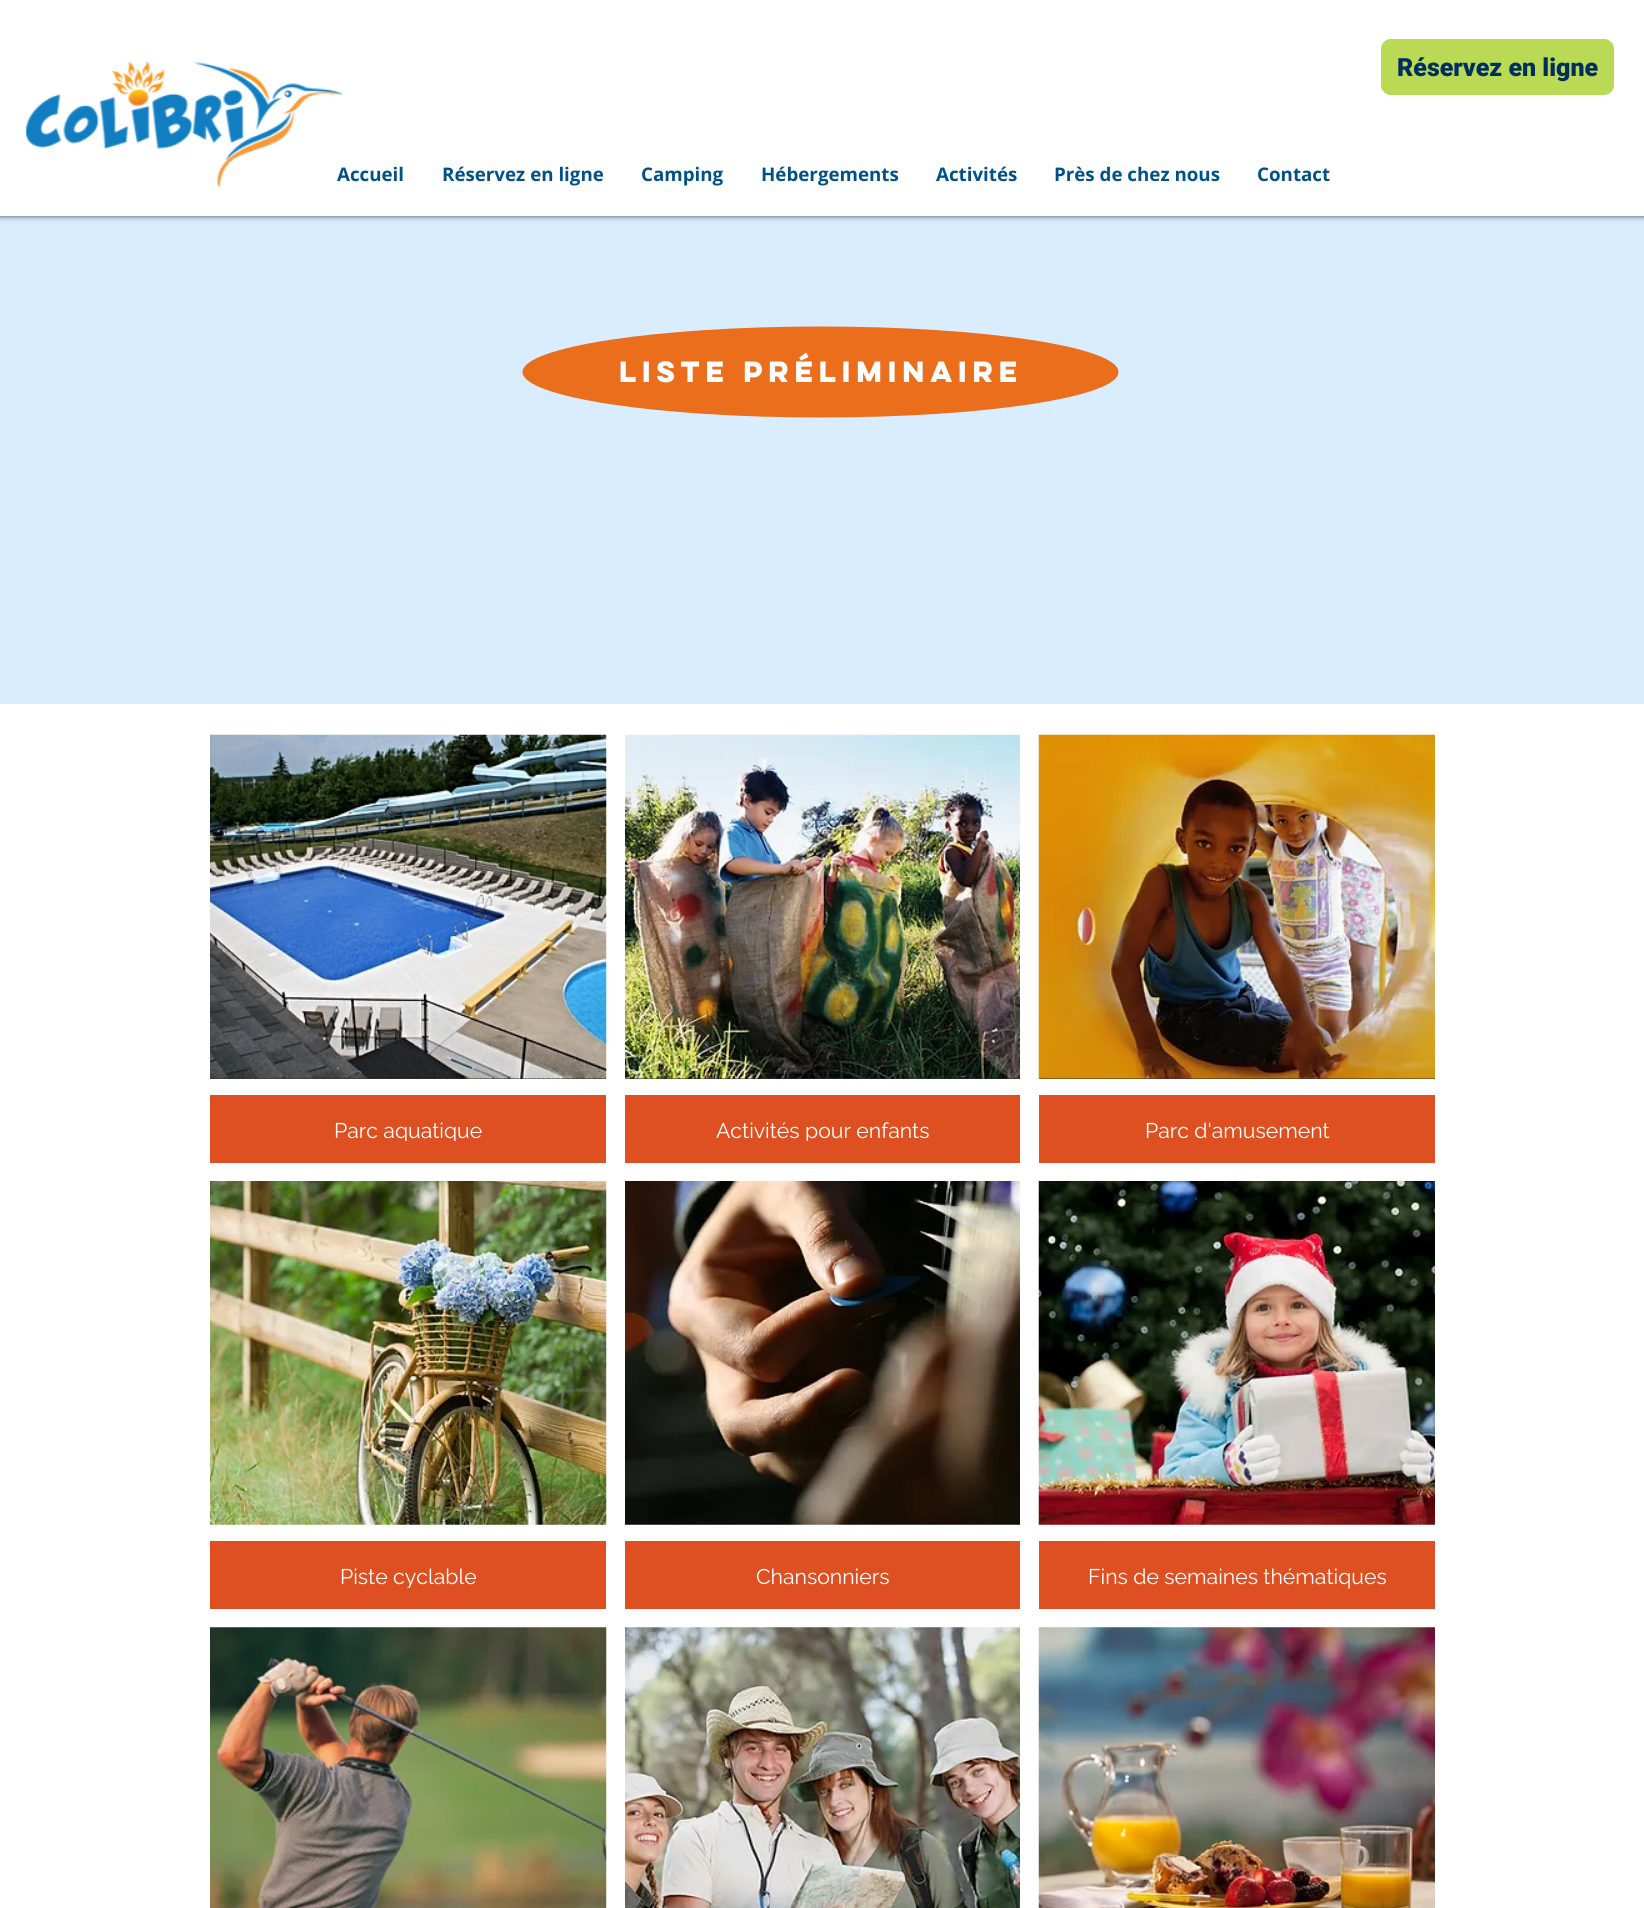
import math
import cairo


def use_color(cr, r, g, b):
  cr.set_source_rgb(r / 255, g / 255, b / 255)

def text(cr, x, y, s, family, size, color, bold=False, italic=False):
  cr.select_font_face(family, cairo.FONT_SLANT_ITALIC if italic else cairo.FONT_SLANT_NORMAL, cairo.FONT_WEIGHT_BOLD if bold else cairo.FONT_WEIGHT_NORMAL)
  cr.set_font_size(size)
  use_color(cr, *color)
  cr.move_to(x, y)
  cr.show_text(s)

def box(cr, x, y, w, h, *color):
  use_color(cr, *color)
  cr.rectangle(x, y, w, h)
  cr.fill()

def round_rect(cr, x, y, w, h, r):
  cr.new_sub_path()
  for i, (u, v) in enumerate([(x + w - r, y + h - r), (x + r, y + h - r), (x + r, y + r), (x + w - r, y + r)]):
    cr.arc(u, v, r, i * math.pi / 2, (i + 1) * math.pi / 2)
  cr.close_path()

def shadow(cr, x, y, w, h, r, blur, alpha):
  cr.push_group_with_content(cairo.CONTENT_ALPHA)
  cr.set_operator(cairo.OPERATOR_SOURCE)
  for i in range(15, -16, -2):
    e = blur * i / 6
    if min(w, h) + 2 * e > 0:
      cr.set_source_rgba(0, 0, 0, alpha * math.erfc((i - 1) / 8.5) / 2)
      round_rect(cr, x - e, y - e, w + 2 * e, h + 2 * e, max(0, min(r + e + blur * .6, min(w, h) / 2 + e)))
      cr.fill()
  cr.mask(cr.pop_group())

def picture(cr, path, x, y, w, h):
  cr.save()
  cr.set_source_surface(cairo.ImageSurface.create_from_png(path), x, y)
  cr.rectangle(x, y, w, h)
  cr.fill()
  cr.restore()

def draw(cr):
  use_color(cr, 255, 255, 255)
  cr.paint()
  box(cr, 0, 216, 1644, 488, 218, 237, 255)
  use_color(cr, 0, 0, 0)
  shadow(cr, 0, 0, 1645, 216, 0, 3, 0.7)
  box(cr, 0, 0, 1644, 216, 255, 255, 255)
  use_color(cr, 186, 218, 85)
  round_rect(cr, 1381, 39, 233, 56, 10)
  cr.fill()
  picture(cr, "img_01.png", 26, 61, 317, 126)
  use_color(cr, 235, 110, 28)
  cr.new_path()
  cr.move_to(820.5, 326.5)
  cr.curve_to(985, 326.5, 1118.5, 347, 1118.5, 372)
  cr.curve_to(1118.5, 397, 985, 417.5, 820.5, 417.5)
  cr.curve_to(656, 417.5, 522.5, 397, 522.5, 372)
  cr.curve_to(522.5, 347, 656, 326.5, 820.5, 326.5)
  cr.close_path()
  cr.fill()
  box(cr, 210, 1078, 396, 1, 47, 46, 46)
  picture(cr, "img_02.png", 210, 734, 397, 345)
  box(cr, 210, 1095, 396, 68, 222, 80, 33)
  box(cr, 625, 1078, 395, 1, 47, 46, 46)
  picture(cr, "img_03.png", 625, 734, 395, 345)
  box(cr, 625, 1095, 395, 68, 222, 80, 33)
  box(cr, 1039, 1078, 396, 1, 47, 46, 46)
  picture(cr, "img_04.png", 1038, 734, 397, 345)
  box(cr, 1039, 1095, 396, 68, 222, 80, 33)
  picture(cr, "img_05.png", 210, 1181, 397, 344)
  box(cr, 210, 1541, 396, 68, 222, 80, 33)
  picture(cr, "img_06.png", 625, 1181, 395, 344)
  box(cr, 625, 1541, 395, 68, 222, 80, 33)
  picture(cr, "img_07.png", 1038, 1181, 397, 344)
  box(cr, 1039, 1541, 396, 68, 222, 80, 33)
  picture(cr, "img_08.png", 210, 1627, 397, 281)
  picture(cr, "img_09.png", 625, 1627, 395, 281)
  picture(cr, "img_10.png", 1038, 1627, 397, 281)
  text(cr, 1397, 76, "Réservez en ligne", "Roboto Black", 25, (0, 46, 93))
  text(cr, 337, 181, "Accueil", "Open Sans", 18.75, (0, 81, 136), bold=True)
  text(cr, 442, 181, "Réservez en ligne", "Open Sans", 18.75, (0, 81, 136), bold=True)
  text(cr, 641, 181, "Camping", "Open Sans", 18.75, (0, 81, 136), bold=True)
  text(cr, 761, 181, "Hébergements", "Open Sans", 18.75, (0, 81, 136), bold=True)
  text(cr, 936, 181, "Activités", "Open Sans", 18.75, (0, 81, 136), bold=True)
  text(cr, 1054, 181, "Près de chez nous", "Open Sans", 18.75, (0, 81, 136), bold=True)
  text(cr, 1257, 181, "Contact", "Open Sans", 18.75, (0, 81, 136), bold=True)
  text(cr, 619, 382, "Liste préliminaire", "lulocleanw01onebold", 26.25, (255, 255, 255), bold=True)
  cr.save()
  cr.rectangle(231, 1116, 354, 25)
  cr.clip()
  text(cr, 334, 1138, "Parc aquatique", "Raleway", 21.25, (255, 255, 255))
  cr.restore()
  cr.save()
  cr.rectangle(646, 1116, 353, 25)
  cr.clip()
  text(cr, 716, 1138, "Activités pour enfants", "Raleway", 21.25, (255, 255, 255))
  cr.restore()
  text(cr, 1145, 1138, "Parc d'amusement", "Raleway", 21.25, (255, 255, 255))
  cr.save()
  cr.rectangle(231, 1563, 354, 25)
  cr.clip()
  text(cr, 340, 1584, "Piste cyclable", "Raleway", 21.25, (255, 255, 255))
  cr.restore()
  text(cr, 756, 1584, "Chansonniers", "Raleway", 21.25, (255, 255, 255))
  text(cr, 1088, 1584, "Fins de semaines thématiques", "Raleway", 21.25, (255, 255, 255))


surface = cairo.ImageSurface(cairo.FORMAT_RGB24, 1644, 1908)
cr = cairo.Context(surface)
options = cairo.FontOptions()
options.set_hint_metrics(cairo.HINT_METRICS_OFF)
options.set_hint_style(cairo.HINT_STYLE_NONE)
cr.set_font_options(options)
cr.set_miter_limit(4)
draw(cr)
surface.write_to_png("out.png")
